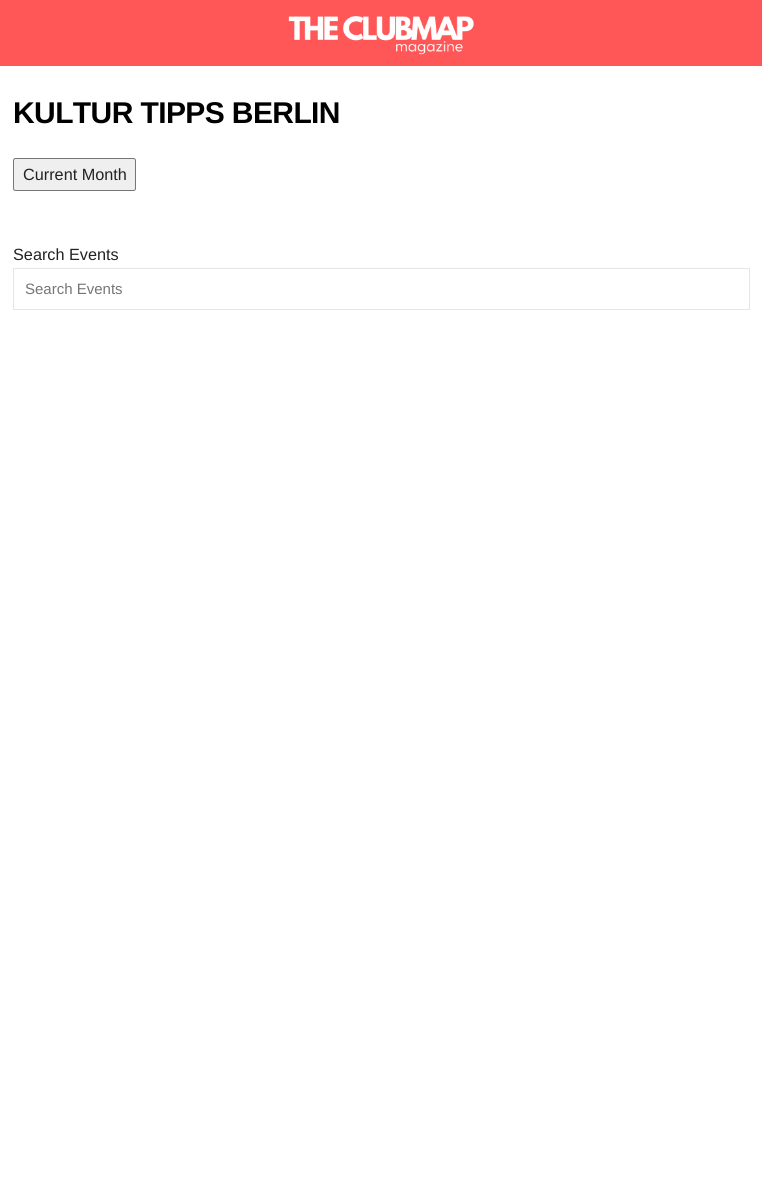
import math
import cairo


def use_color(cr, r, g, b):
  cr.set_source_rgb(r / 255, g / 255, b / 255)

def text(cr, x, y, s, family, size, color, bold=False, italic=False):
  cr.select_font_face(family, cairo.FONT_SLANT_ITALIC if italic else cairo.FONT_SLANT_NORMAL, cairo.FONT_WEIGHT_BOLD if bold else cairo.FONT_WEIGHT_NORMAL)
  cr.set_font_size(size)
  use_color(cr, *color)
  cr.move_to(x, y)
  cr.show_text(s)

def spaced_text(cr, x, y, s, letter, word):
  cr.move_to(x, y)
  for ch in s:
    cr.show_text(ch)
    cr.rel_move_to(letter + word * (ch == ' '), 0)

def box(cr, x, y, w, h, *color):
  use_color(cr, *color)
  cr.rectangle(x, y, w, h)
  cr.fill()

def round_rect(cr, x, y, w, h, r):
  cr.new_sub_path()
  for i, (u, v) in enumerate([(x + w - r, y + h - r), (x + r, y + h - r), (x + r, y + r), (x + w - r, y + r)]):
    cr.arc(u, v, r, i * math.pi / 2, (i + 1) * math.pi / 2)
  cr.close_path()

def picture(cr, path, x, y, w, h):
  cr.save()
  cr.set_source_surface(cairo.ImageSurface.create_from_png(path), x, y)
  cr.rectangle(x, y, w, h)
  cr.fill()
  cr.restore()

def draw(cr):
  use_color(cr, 255, 87, 87)
  cr.paint()
  picture(cr, "img_01.png", 288, 16, 186, 39)
  box(cr, 0, 66, 762, 1122, 255, 255, 255)
  use_color(cr, 239, 239, 239)
  round_rect(cr, 13.5, 158.5, 122, 32, 2)
  cr.fill_preserve()
  use_color(cr, 118, 118, 118)
  cr.set_line_width(1)
  cr.stroke()
  cr.rectangle(13.5, 268.5, 736, 41)
  use_color(cr, 230, 230, 230)
  cr.stroke()
  cr.select_font_face("Liberation Sans", cairo.FONT_SLANT_NORMAL, cairo.FONT_WEIGHT_BOLD)
  cr.set_font_size(30)
  use_color(cr, 0, 0, 0)
  spaced_text(cr, 13, 123, "KULTUR TIPPS BERLIN", -0.6, 0)
  text(cr, 23, 180, "Current Month", "Liberation Sans", 16.25, (34, 34, 34))
  text(cr, 13, 260, "Search Events", "Liberation Sans", 16.25, (34, 34, 34))
  text(cr, 25, 294, "Search Events", "Liberation Sans", 15, (117, 117, 117))


surface = cairo.ImageSurface(cairo.FORMAT_RGB24, 762, 1188)
cr = cairo.Context(surface)
options = cairo.FontOptions()
options.set_hint_metrics(cairo.HINT_METRICS_OFF)
options.set_hint_style(cairo.HINT_STYLE_NONE)
cr.set_font_options(options)
cr.set_miter_limit(4)
draw(cr)
surface.write_to_png("out.png")
